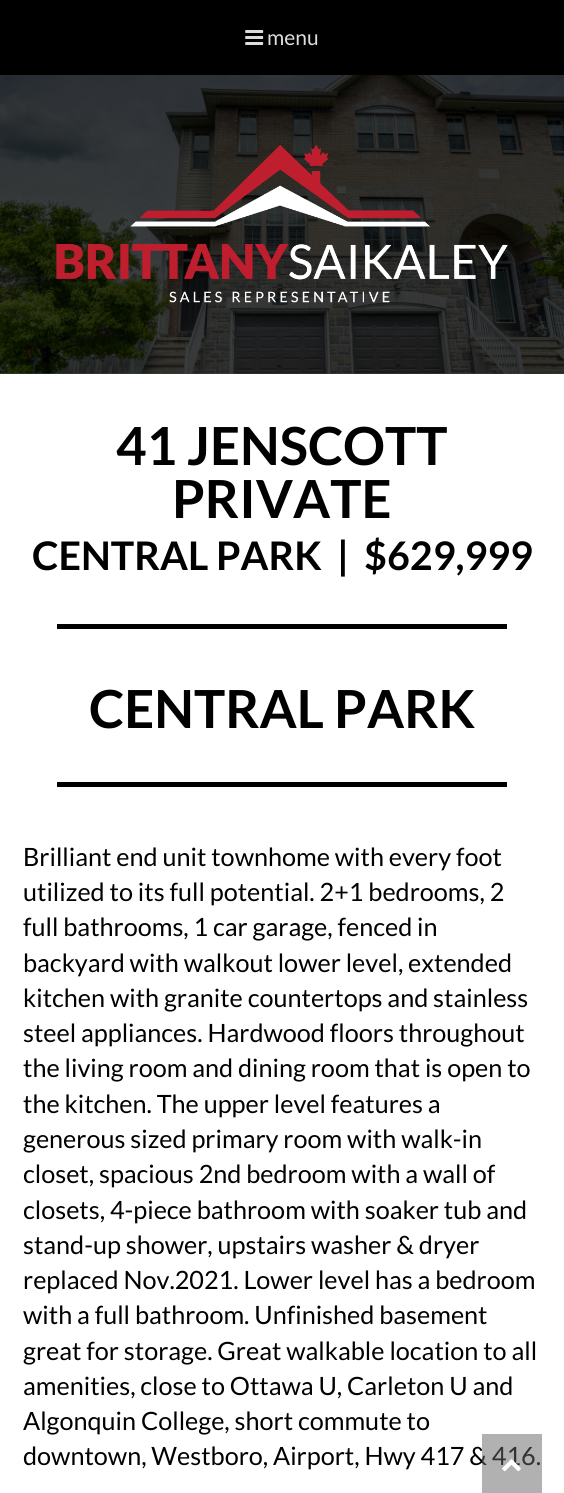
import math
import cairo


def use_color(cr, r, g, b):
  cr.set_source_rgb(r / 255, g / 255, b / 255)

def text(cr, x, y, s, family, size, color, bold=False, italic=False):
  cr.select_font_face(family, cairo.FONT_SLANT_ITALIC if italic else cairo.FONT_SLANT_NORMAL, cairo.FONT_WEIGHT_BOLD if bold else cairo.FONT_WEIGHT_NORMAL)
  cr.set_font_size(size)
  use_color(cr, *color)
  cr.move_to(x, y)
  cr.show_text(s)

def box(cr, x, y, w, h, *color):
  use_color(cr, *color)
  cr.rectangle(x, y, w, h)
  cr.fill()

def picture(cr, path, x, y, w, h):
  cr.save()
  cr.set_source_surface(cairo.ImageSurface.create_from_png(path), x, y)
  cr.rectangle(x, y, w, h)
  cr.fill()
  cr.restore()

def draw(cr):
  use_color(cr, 0, 0, 0)
  cr.paint()
  box(cr, 0, 374, 564, 1119, 255, 255, 255)
  box(cr, 0, 373, 564, 1, 64, 64, 64)
  picture(cr, "img_01.png", 245, 30, 19, 15)
  picture(cr, "img_02.png", 0, 75, 564, 299)
  picture(cr, "img_03.png", 56, 144, 452, 159)
  box(cr, 57, 624, 450, 5, 0, 0, 0)
  box(cr, 57, 782, 450, 5, 0, 0, 0)
  text(cr, 267, 45, "menu", "Lato", 21, (221, 221, 221))
  text(cr, 116, 465, "41 JENSCOTT", "Lato", 52.5, (0, 0, 0), bold=True)
  text(cr, 172, 518, "PRIVATE", "Lato", 52.5, (0, 0, 0), bold=True)
  text(cr, 32, 570, "CENTRAL PARK  |  $629,999", "Lato", 39.4, (0, 0, 0), bold=True)
  text(cr, 89, 728, "CENTRAL PARK", "Lato", 52.5, (0, 0, 0), bold=True)
  text(cr, 23, 866, "Brilliant end unit townhome with every foot", "Lato", 25.2, (0, 0, 0))
  text(cr, 23, 901, "utilized to its full potential. 2+1 bedrooms, 2", "Lato", 25.2, (0, 0, 0))
  text(cr, 23, 936, "full bathrooms, 1 car garage, fenced in", "Lato", 25.2, (0, 0, 0))
  text(cr, 23, 972, "backyard with walkout lower level, extended", "Lato", 25.2, (0, 0, 0))
  text(cr, 23, 1007, "kitchen with granite countertops and stainless", "Lato", 25.2, (0, 0, 0))
  text(cr, 23, 1042, "steel appliances. Hardwood floors throughout", "Lato", 25.2, (0, 0, 0))
  text(cr, 23, 1077, "the living room and dining room that is open to", "Lato", 25.2, (0, 0, 0))
  text(cr, 23, 1113, "the kitchen. The upper level features a", "Lato", 25.2, (0, 0, 0))
  text(cr, 23, 1148, "generous sized primary room with walk-in", "Lato", 25.2, (0, 0, 0))
  text(cr, 23, 1183, "closet, spacious 2nd bedroom with a wall of", "Lato", 25.2, (0, 0, 0))
  text(cr, 23, 1219, "closets, 4-piece bathroom with soaker tub and", "Lato", 25.2, (0, 0, 0))
  text(cr, 23, 1254, "stand-up shower, upstairs washer & dryer", "Lato", 25.2, (0, 0, 0))
  text(cr, 23, 1289, "replaced Nov.2021. Lower level has a bedroom", "Lato", 25.2, (0, 0, 0))
  text(cr, 23, 1324, "with a full bathroom. Unfinished basement", "Lato", 25.2, (0, 0, 0))
  text(cr, 23, 1360, "great for storage. Great walkable location to all", "Lato", 25.2, (0, 0, 0))
  text(cr, 23, 1395, "amenities, close to Ottawa U, Carleton U and", "Lato", 25.2, (0, 0, 0))
  text(cr, 23, 1430, "Algonquin College, short commute to", "Lato", 25.2, (0, 0, 0))
  text(cr, 23, 1465, "downtown, Westboro, Airport, Hwy 417 & 416.", "Lato", 25.2, (0, 0, 0))
  cr.set_source_rgba(0.392, 0.392, 0.392, 0.5)
  cr.rectangle(482, 1434, 60, 59)
  cr.fill()
  picture(cr, "img_04.png", 502, 1459, 19, 13)


surface = cairo.ImageSurface(cairo.FORMAT_RGB24, 564, 1493)
cr = cairo.Context(surface)
options = cairo.FontOptions()
options.set_hint_metrics(cairo.HINT_METRICS_OFF)
options.set_hint_style(cairo.HINT_STYLE_NONE)
cr.set_font_options(options)
cr.set_miter_limit(4)
draw(cr)
surface.write_to_png("out.png")
